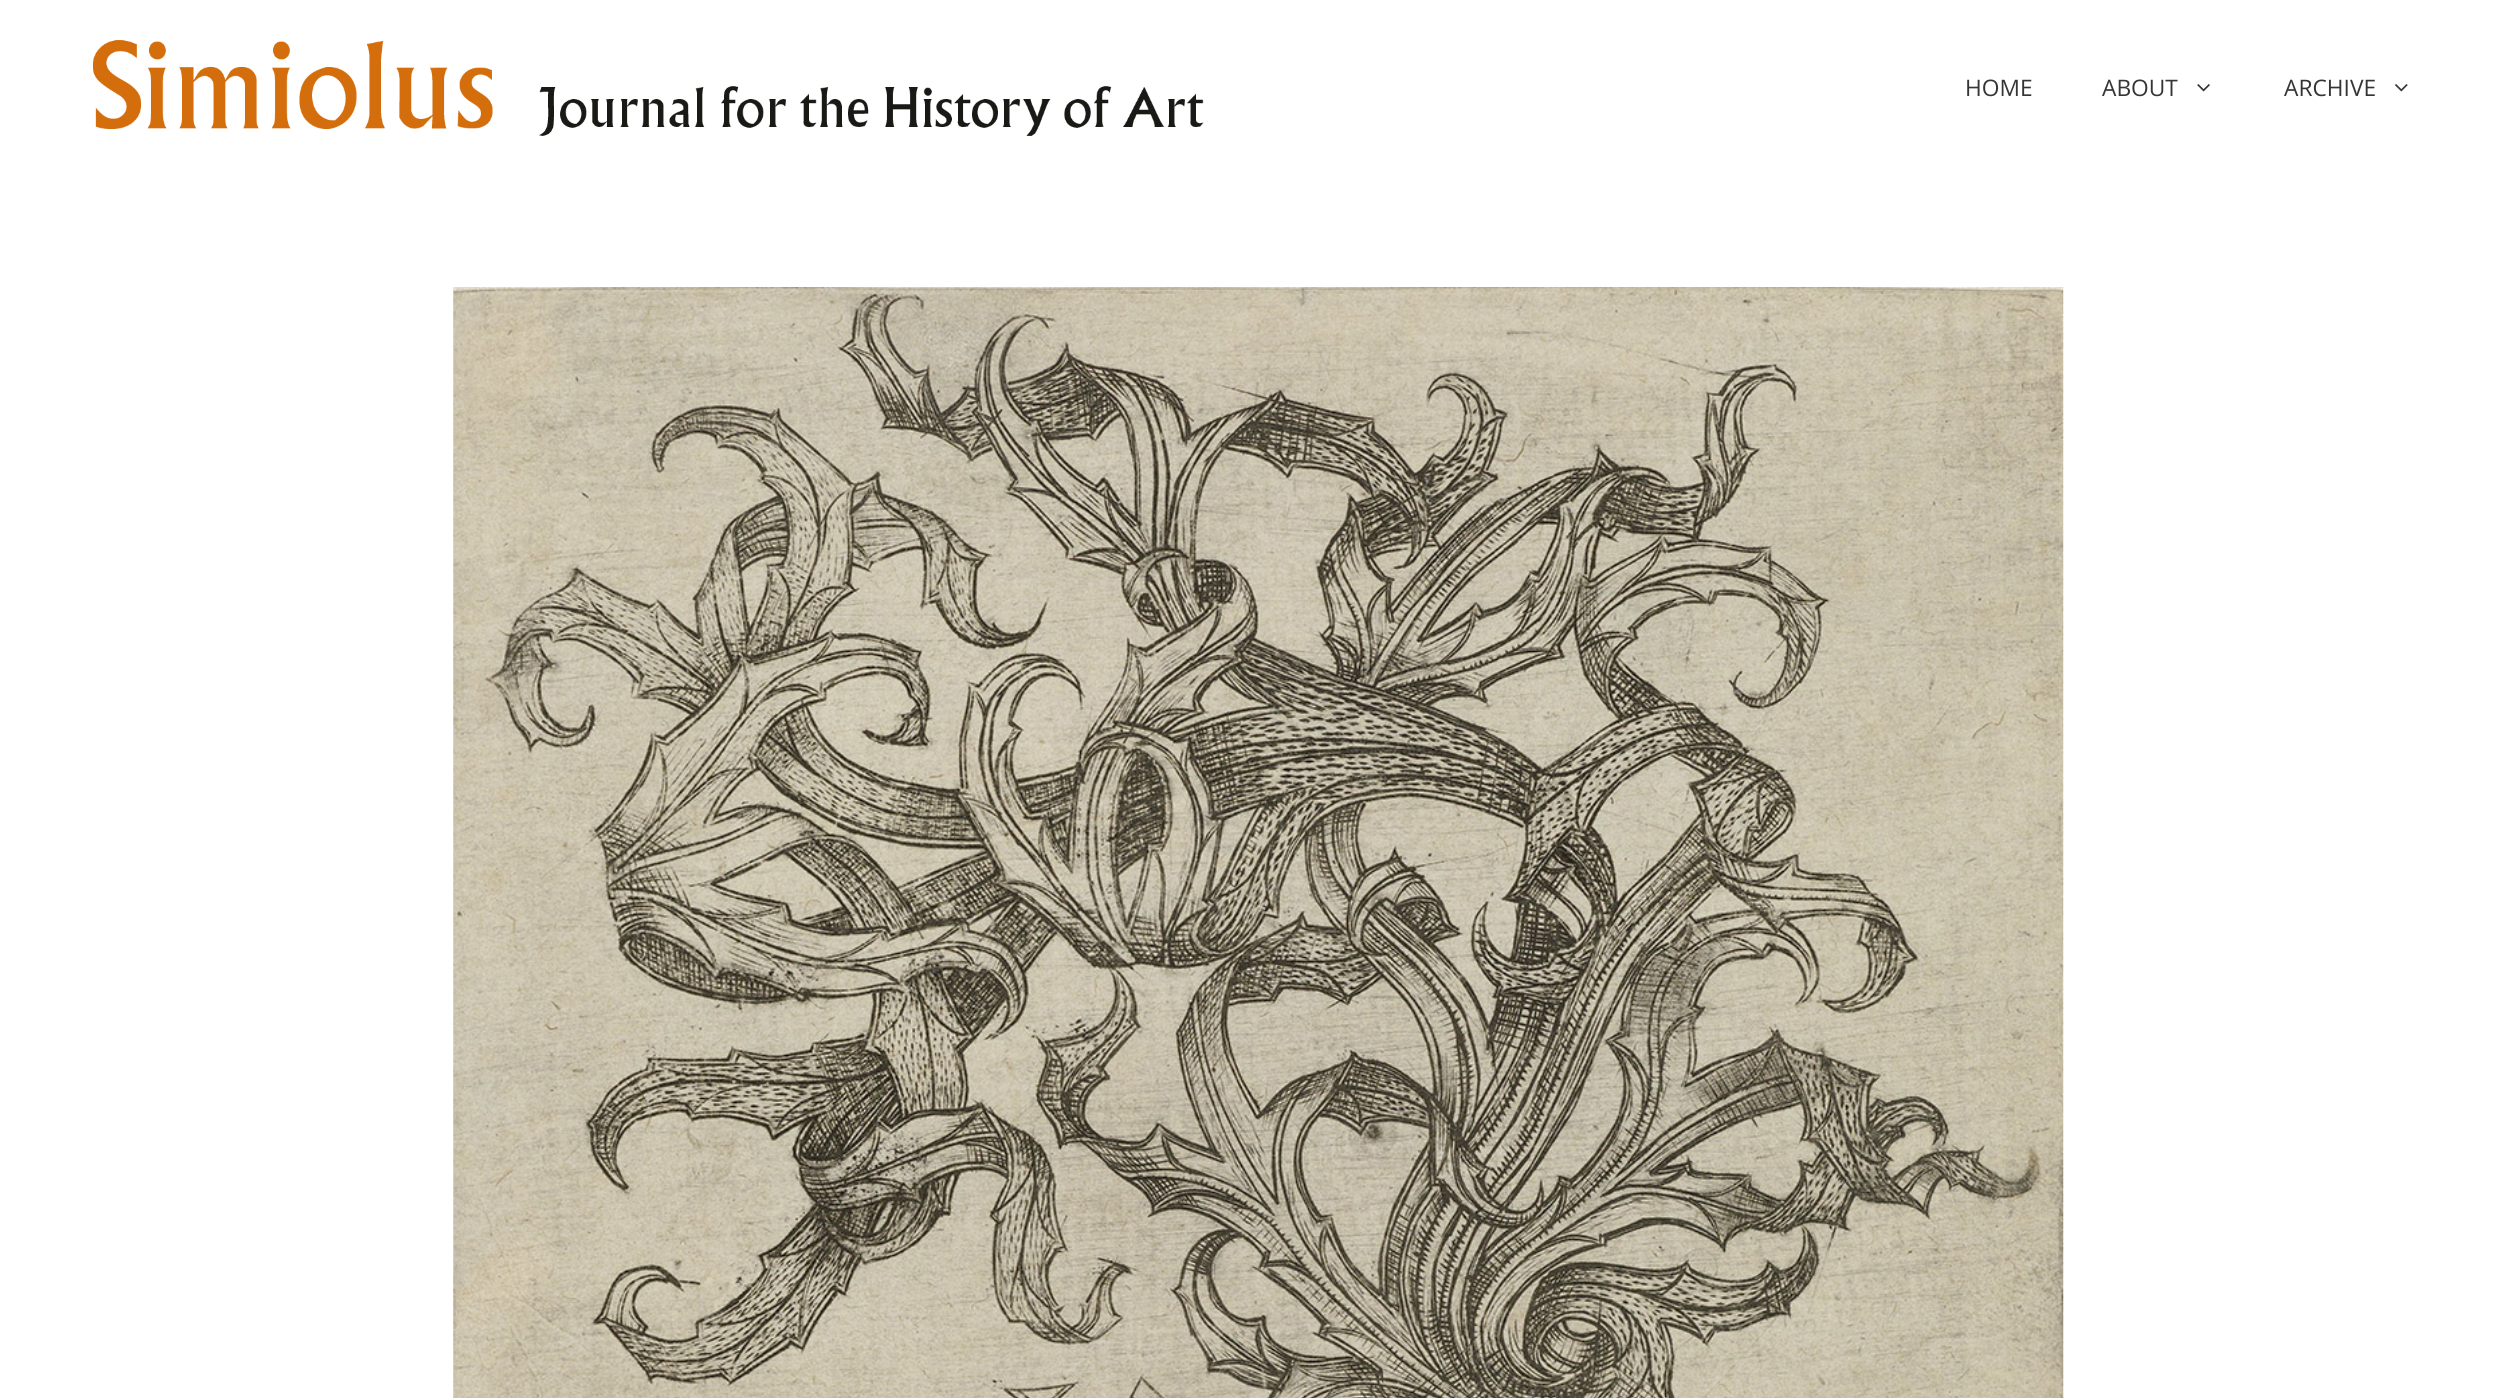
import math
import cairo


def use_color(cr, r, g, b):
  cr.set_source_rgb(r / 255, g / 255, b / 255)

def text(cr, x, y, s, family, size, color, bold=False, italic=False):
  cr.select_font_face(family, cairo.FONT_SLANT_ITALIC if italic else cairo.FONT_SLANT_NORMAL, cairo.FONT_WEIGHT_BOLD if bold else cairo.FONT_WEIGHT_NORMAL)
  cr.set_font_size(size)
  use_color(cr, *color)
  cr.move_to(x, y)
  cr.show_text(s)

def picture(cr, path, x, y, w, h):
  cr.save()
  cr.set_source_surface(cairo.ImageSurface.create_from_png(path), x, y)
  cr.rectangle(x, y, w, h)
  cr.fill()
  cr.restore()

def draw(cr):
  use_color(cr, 255, 255, 255)
  cr.paint()
  picture(cr, "img_01.png", 93, 40, 1111, 96)
  picture(cr, "img_02.png", 2197, 84, 13, 8)
  picture(cr, "img_03.png", 2395, 84, 13, 8)
  picture(cr, "img_04.png", 453, 287, 1611, 1111)
  text(cr, 1965, 96, "HOME", "Open Sans", 22.75, (53, 53, 53))
  text(cr, 2102, 96, "ABOUT", "Open Sans", 22.75, (53, 53, 53))
  text(cr, 2284, 96, "ARCHIVE", "Open Sans", 22.75, (53, 53, 53))


surface = cairo.ImageSurface(cairo.FORMAT_RGB24, 2515, 1398)
cr = cairo.Context(surface)
options = cairo.FontOptions()
options.set_hint_metrics(cairo.HINT_METRICS_OFF)
options.set_hint_style(cairo.HINT_STYLE_NONE)
cr.set_font_options(options)
cr.set_miter_limit(4)
draw(cr)
surface.write_to_png("out.png")
